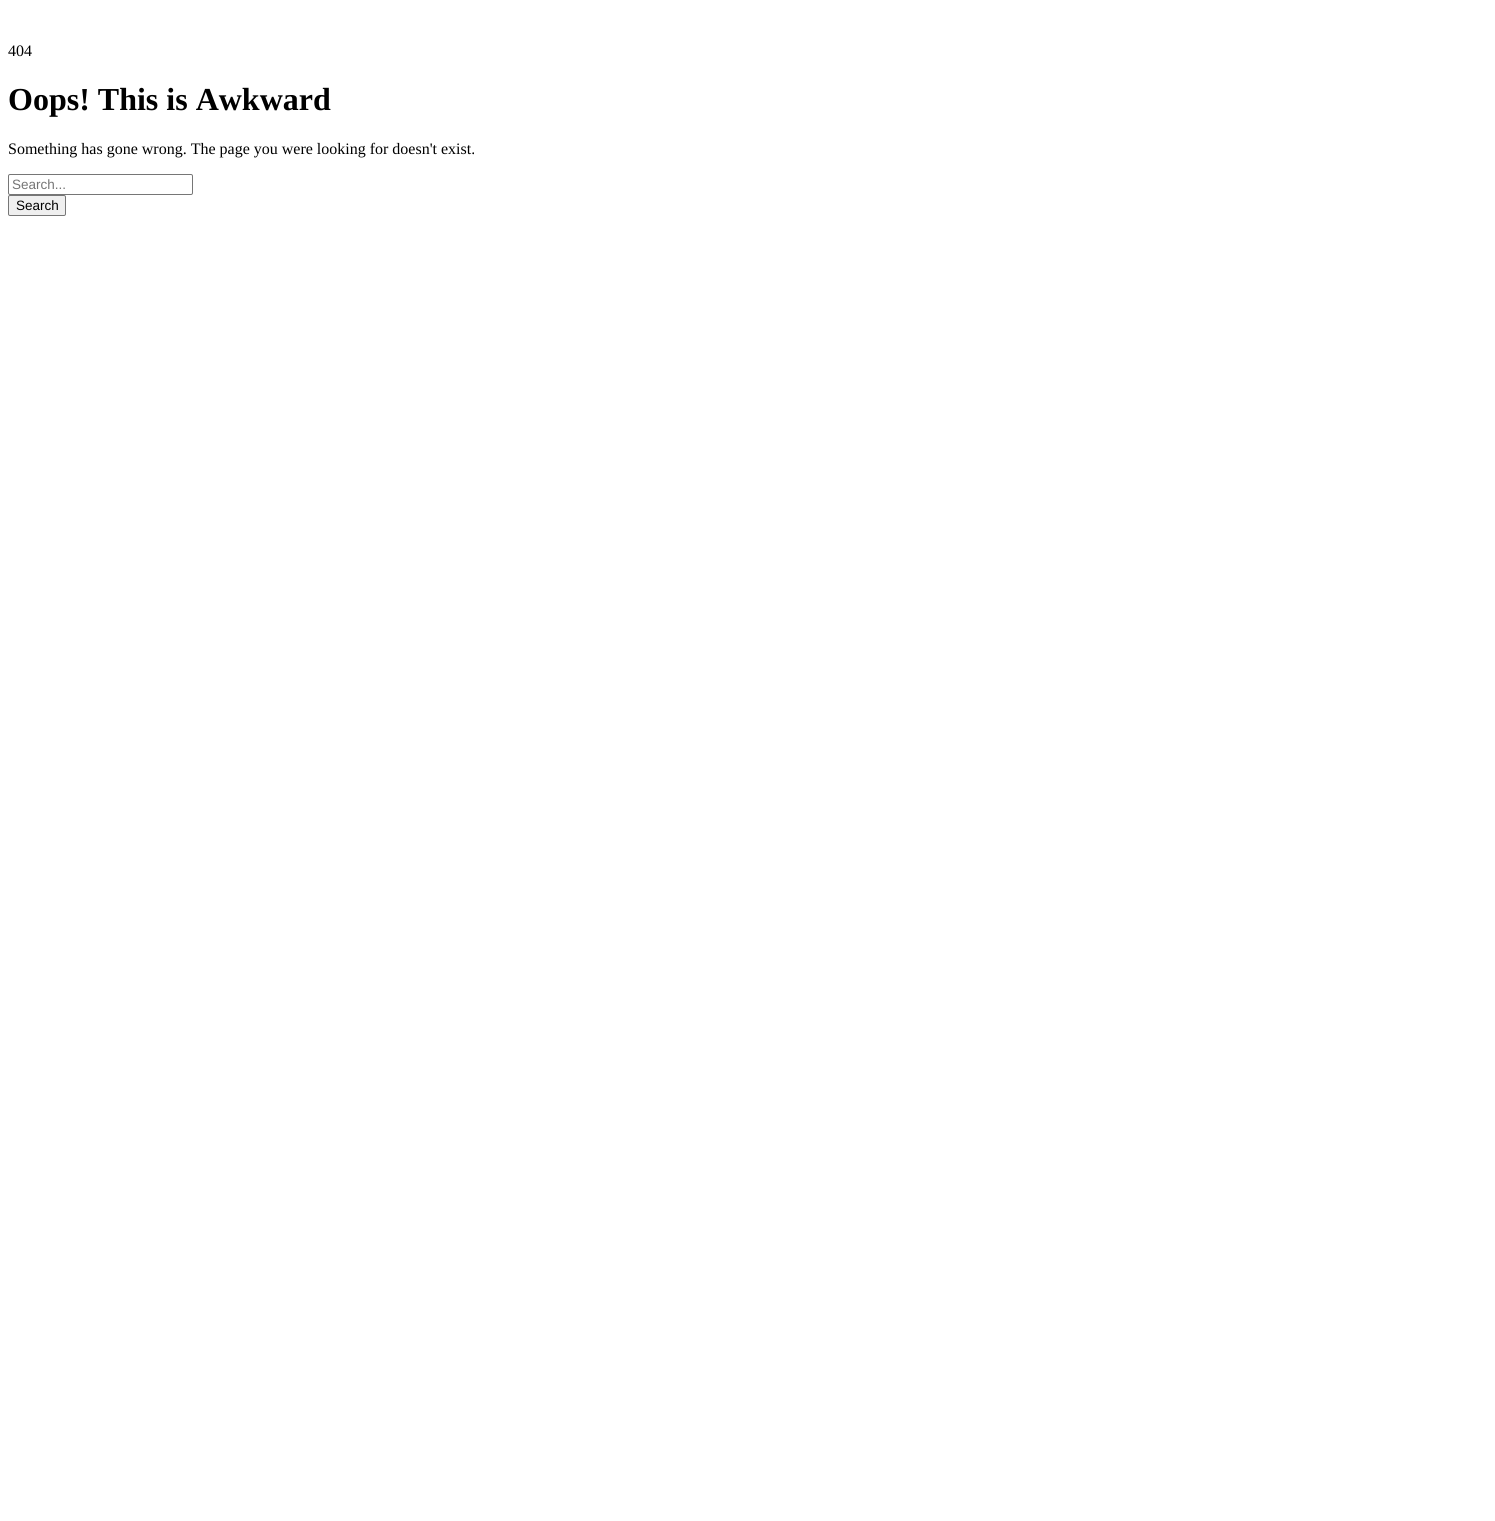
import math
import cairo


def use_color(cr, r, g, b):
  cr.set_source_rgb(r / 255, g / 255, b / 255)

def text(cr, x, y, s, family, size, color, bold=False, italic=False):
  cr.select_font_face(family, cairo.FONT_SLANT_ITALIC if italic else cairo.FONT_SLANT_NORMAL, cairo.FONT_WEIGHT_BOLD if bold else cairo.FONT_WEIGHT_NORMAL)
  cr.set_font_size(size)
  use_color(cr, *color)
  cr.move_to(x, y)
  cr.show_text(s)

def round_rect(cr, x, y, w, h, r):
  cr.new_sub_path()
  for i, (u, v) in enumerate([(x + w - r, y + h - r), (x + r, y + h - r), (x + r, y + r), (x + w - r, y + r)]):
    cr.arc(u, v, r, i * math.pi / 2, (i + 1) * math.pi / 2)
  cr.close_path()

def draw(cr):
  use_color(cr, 255, 255, 255)
  cr.paint()
  round_rect(cr, 8.5, 174.5, 184, 20, 1.5)
  use_color(cr, 118, 118, 118)
  cr.set_line_width(1)
  cr.stroke()
  use_color(cr, 239, 239, 239)
  round_rect(cr, 8.5, 195.5, 57, 20, 1.5)
  cr.fill_preserve()
  use_color(cr, 118, 118, 118)
  cr.stroke()
  text(cr, 8, 56, "404", "Liberation Serif", 16, (0, 0, 0))
  text(cr, 8, 110, "Oops! This is Awkward", "Liberation Serif", 32, (0, 0, 0), bold=True)
  text(cr, 8, 154, "Something has gone wrong. The page you were looking for doesn't exist.", "Liberation Serif", 16, (0, 0, 0))
  text(cr, 12, 189, "Search...", "Liberation Sans", 13.5, (117, 117, 117))
  text(cr, 16, 210, "Search", "Liberation Sans", 13.5, (0, 0, 0))


surface = cairo.ImageSurface(cairo.FORMAT_RGB24, 1495, 1521)
cr = cairo.Context(surface)
options = cairo.FontOptions()
options.set_hint_metrics(cairo.HINT_METRICS_OFF)
options.set_hint_style(cairo.HINT_STYLE_NONE)
cr.set_font_options(options)
cr.set_miter_limit(4)
draw(cr)
surface.write_to_png("out.png")
